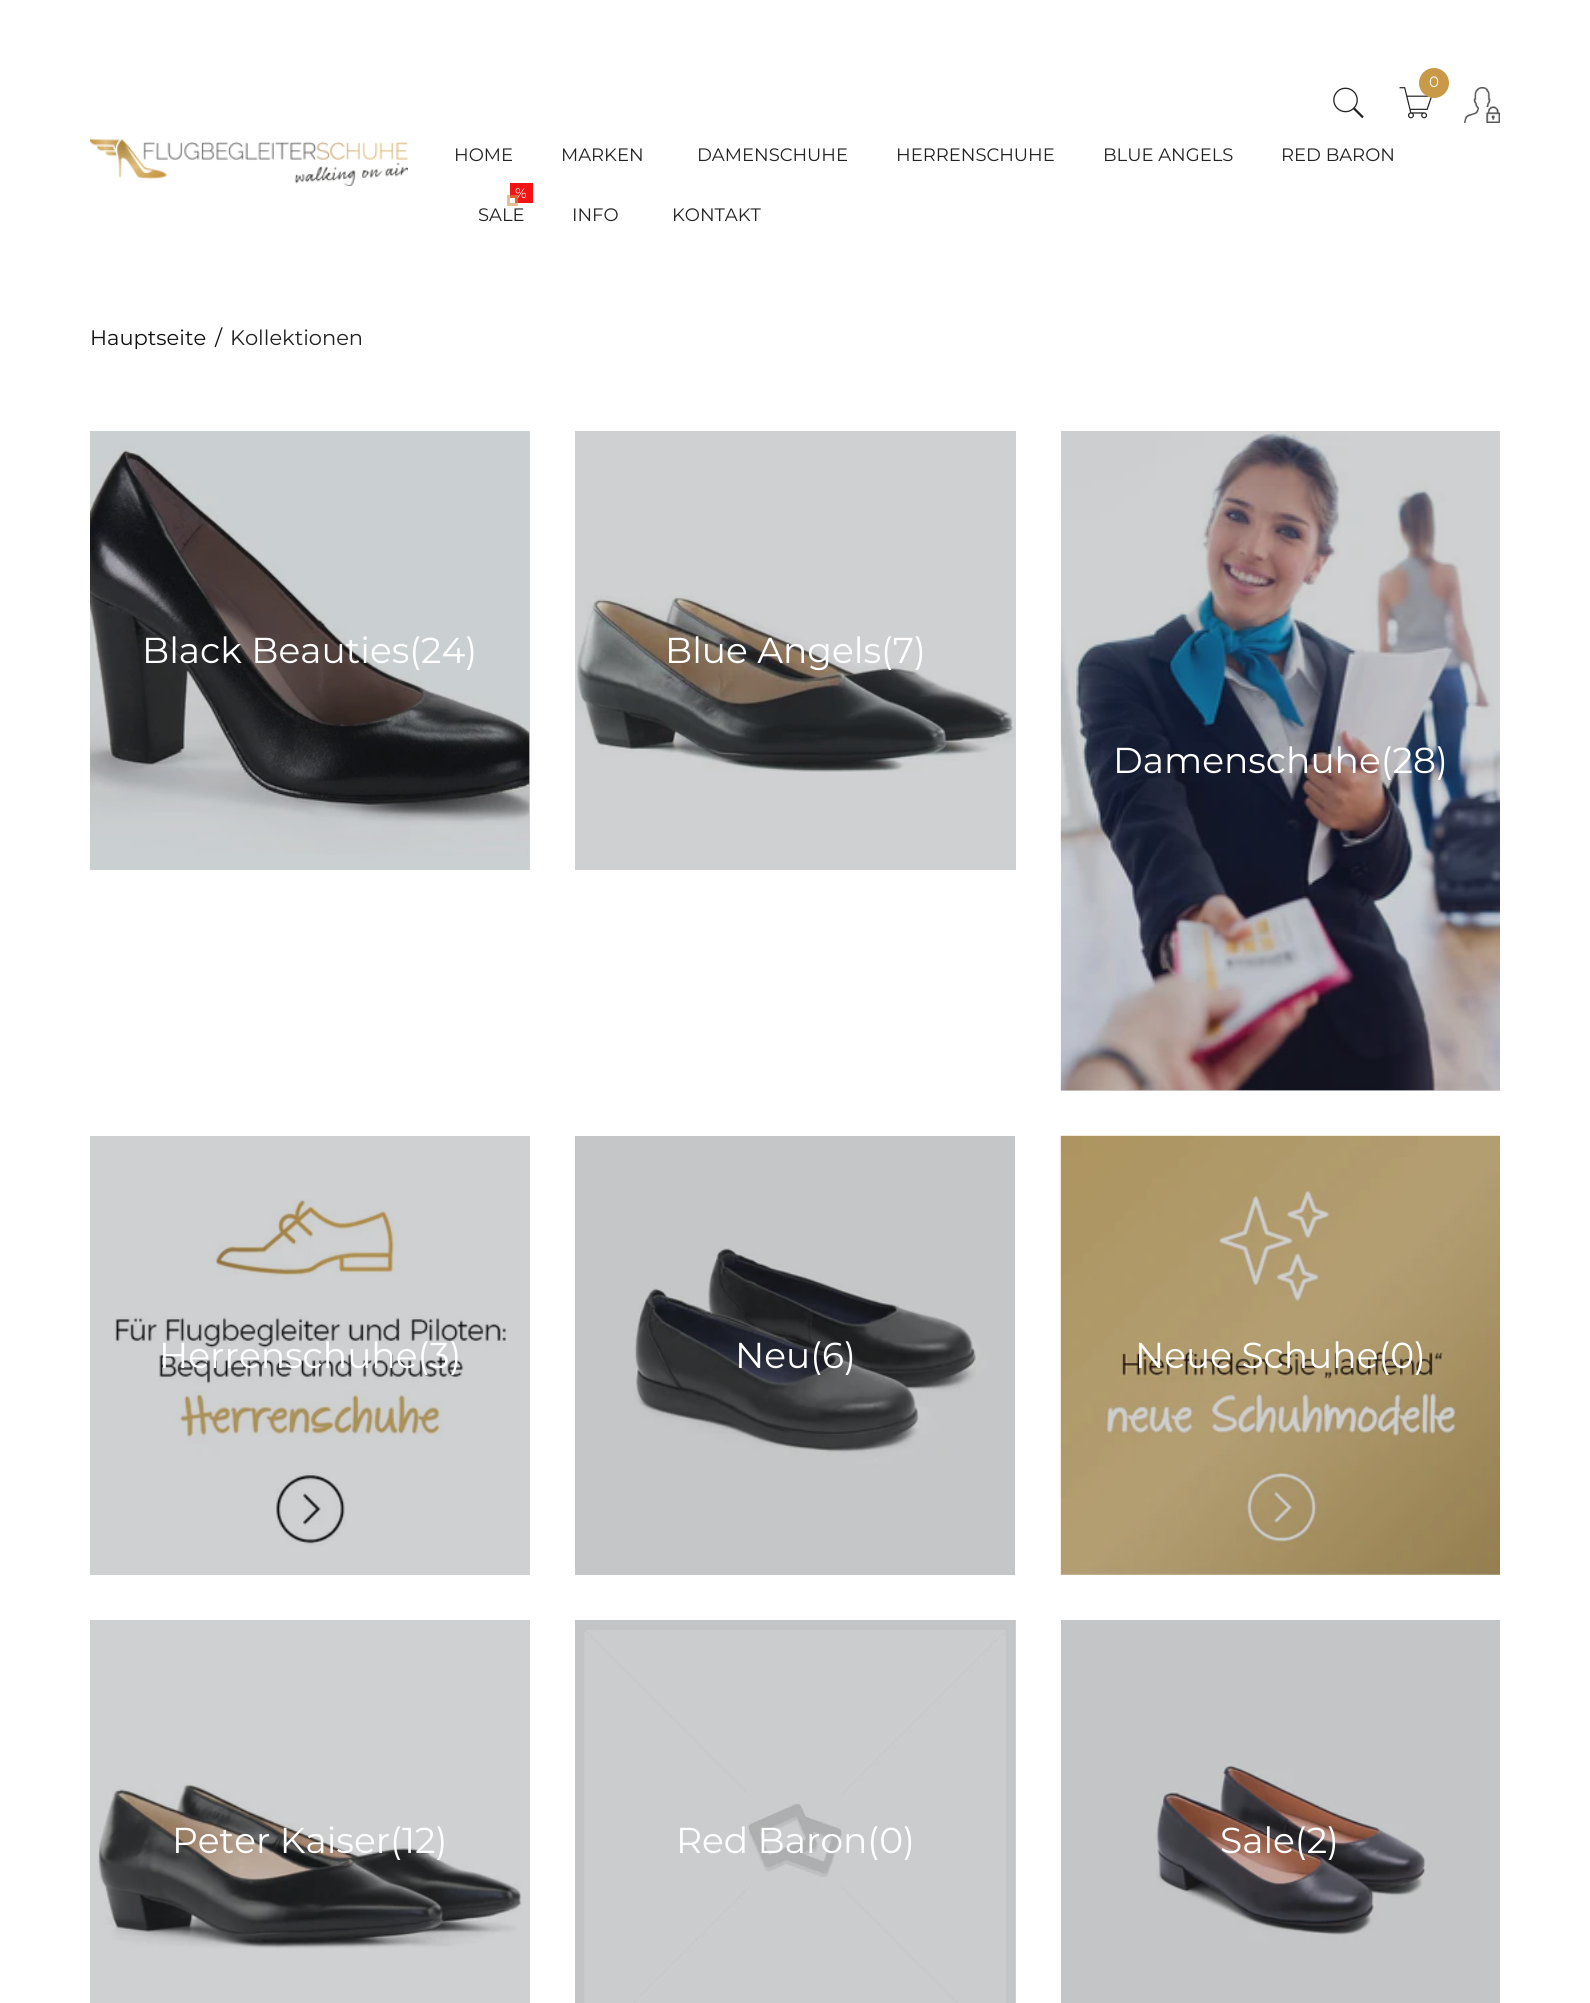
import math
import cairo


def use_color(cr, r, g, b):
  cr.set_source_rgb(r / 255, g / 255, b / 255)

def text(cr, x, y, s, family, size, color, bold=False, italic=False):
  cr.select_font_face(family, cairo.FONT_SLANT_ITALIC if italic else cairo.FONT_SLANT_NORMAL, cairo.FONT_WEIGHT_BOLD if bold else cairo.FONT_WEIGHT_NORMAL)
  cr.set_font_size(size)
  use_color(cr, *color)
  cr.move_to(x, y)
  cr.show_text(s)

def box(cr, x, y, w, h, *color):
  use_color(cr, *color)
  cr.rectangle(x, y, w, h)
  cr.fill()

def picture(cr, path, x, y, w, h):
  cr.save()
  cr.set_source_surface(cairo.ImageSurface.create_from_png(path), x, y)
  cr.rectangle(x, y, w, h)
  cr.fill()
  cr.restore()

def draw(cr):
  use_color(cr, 255, 255, 255)
  cr.paint()
  box(cr, 1015, 1620, 1, 383, 207, 208, 209)
  box(cr, 90, 1620, 440, 383, 207, 208, 209)
  box(cr, 90, 1136, 440, 439, 207, 208, 209)
  box(cr, 1061, 1090, 439, 1, 207, 208, 209)
  box(cr, 575, 431, 441, 439, 207, 208, 209)
  box(cr, 529, 431, 1, 439, 207, 208, 209)
  picture(cr, "img_01.png", 90, 139, 318, 47)
  picture(cr, "img_02.png", 1399, 87, 33, 32)
  use_color(cr, 201, 153, 71)
  cr.arc(1434, 83, 15, 0, 2 * math.pi)
  cr.fill()
  picture(cr, "img_03.png", 1333, 87, 31, 32)
  picture(cr, "img_04.png", 1464, 87, 36, 36)
  box(cr, 510, 183, 23, 20, 243, 19, 19)
  picture(cr, "img_05.png", 90, 431, 440, 439)
  picture(cr, "img_06.png", 575, 595, 440, 177)
  picture(cr, "img_07.png", 1060, 431, 440, 660)
  picture(cr, "img_08.png", 115, 1199, 391, 347)
  picture(cr, "img_09.png", 575, 1136, 440, 439)
  picture(cr, "img_10.png", 1060, 1135, 440, 440)
  picture(cr, "img_11.png", 97, 1783, 425, 166)
  picture(cr, "img_12.png", 574, 1620, 442, 383)
  picture(cr, "img_13.png", 1061, 1620, 439, 383)
  text(cr, 1429, 87, "0", "Montserrat", 15, (255, 255, 255))
  text(cr, 454, 161, "HOME", "Montserrat", 18, (34, 34, 34))
  text(cr, 561, 161, "MARKEN", "Montserrat", 18, (34, 34, 34))
  text(cr, 697, 161, "DAMENSCHUHE", "Montserrat", 18, (34, 34, 34))
  text(cr, 896, 161, "HERRENSCHUHE", "Montserrat", 18, (34, 34, 34))
  text(cr, 1103, 161, "BLUE ANGELS", "Montserrat", 18, (34, 34, 34))
  text(cr, 1281, 161, "RED BARON", "Montserrat", 18, (34, 34, 34))
  text(cr, 515, 198, "%", "Montserrat", 14, (255, 255, 255))
  cr.set_source_rgba(0.812, 0.6, 0.278, 0.6)
  cr.rectangle(507, 195, 11, 11)
  cr.fill()
  box(cr, 510, 198, 5, 5, 255, 255, 255)
  text(cr, 478, 221, "SALE", "Montserrat", 18, (34, 34, 34))
  text(cr, 572, 221, "INFO", "Montserrat", 18, (34, 34, 34))
  text(cr, 672, 221, "KONTAKT", "Montserrat", 18, (34, 34, 34))
  text(cr, 90, 345, "Hauptseite", "Montserrat", 21, (17, 17, 17))
  text(cr, 215, 345, "/", "Montserrat", 21, (17, 17, 17))
  text(cr, 230, 345, "Kollektionen", "Montserrat", 21, (34, 34, 34))
  text(cr, 142, 663, "Black Beauties(24)", "Montserrat", 36, (255, 255, 255))
  text(cr, 665, 663, "Blue Angels(7)", "Montserrat", 36, (255, 255, 255))
  text(cr, 1113, 773, "Damenschuhe(28)", "Montserrat", 36, (255, 255, 255))
  text(cr, 159, 1368, "Herrenschuhe(3)", "Montserrat", 36, (255, 255, 255))
  text(cr, 735, 1368, "Neu(6)", "Montserrat", 36, (255, 255, 255))
  text(cr, 1135, 1368, "Neue Schuhe(0)", "Montserrat", 36, (255, 255, 255))
  text(cr, 172, 1853, "Peter Kaiser(12)", "Montserrat", 36, (255, 255, 255))
  text(cr, 676, 1853, "Red Baron(0)", "Montserrat", 36, (255, 255, 255))
  text(cr, 1220, 1853, "Sale(2)", "Montserrat", 36, (255, 255, 255))


surface = cairo.ImageSurface(cairo.FORMAT_RGB24, 1590, 2003)
cr = cairo.Context(surface)
options = cairo.FontOptions()
options.set_hint_metrics(cairo.HINT_METRICS_OFF)
options.set_hint_style(cairo.HINT_STYLE_NONE)
cr.set_font_options(options)
cr.set_miter_limit(4)
draw(cr)
surface.write_to_png("out.png")
